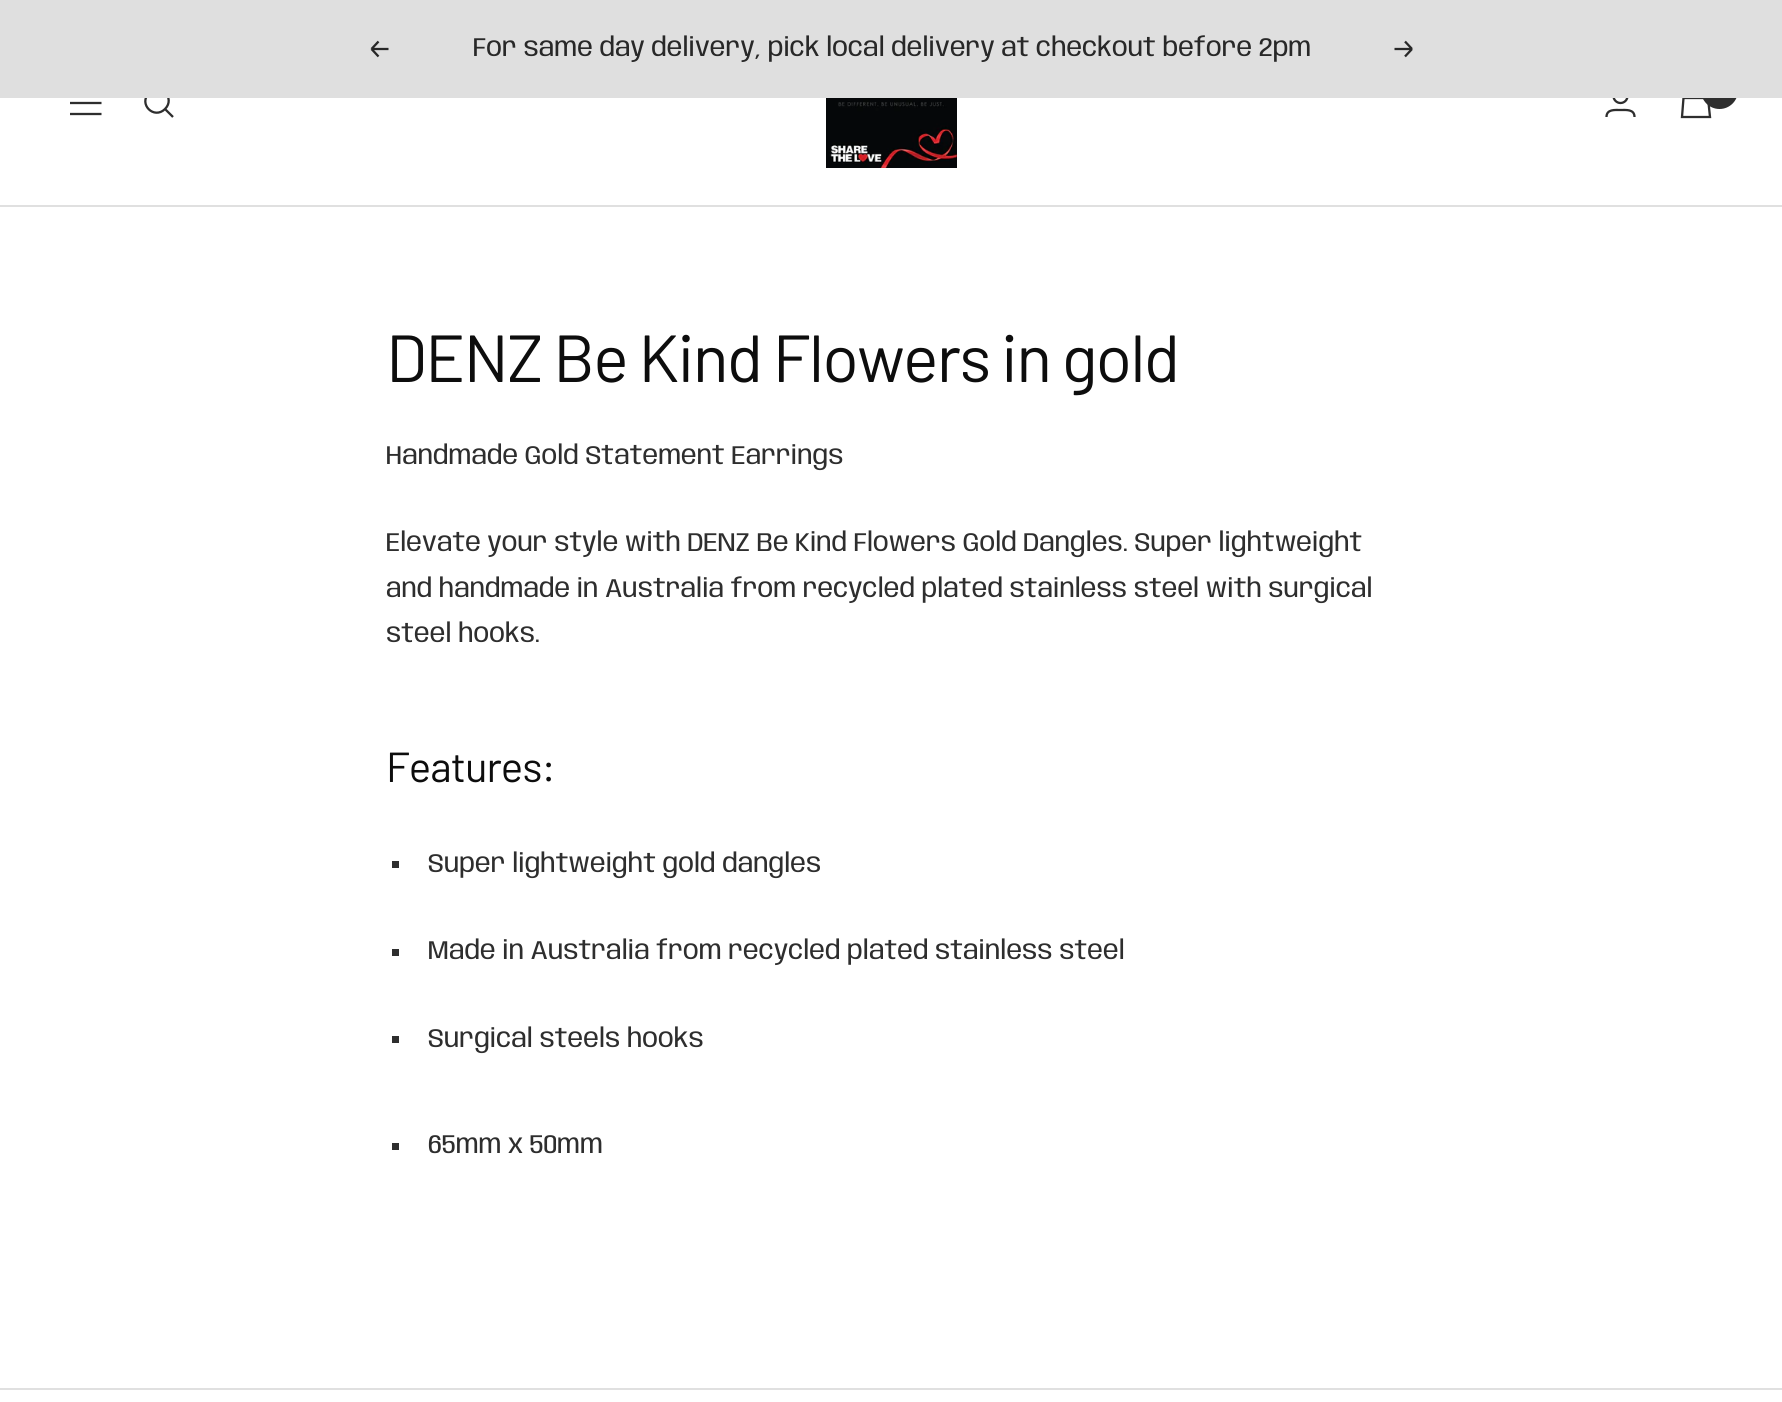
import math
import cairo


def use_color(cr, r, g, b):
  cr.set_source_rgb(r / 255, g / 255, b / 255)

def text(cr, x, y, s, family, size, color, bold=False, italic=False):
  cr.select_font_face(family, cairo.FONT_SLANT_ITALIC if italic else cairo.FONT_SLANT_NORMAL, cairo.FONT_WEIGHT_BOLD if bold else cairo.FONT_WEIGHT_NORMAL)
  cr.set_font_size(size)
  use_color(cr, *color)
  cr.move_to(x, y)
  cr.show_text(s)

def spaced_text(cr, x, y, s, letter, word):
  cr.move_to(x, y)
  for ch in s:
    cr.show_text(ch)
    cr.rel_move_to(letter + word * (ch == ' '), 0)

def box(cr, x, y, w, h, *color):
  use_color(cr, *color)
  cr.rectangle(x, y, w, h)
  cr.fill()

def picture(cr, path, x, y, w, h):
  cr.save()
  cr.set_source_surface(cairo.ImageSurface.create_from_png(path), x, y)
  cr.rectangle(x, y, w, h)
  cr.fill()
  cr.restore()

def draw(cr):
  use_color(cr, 255, 255, 255)
  cr.paint()
  cr.new_path()
  cr.move_to(70, 93)
  cr.line_to(101.5, 93)
  cr.move_to(70, 114)
  cr.line_to(101.5, 114)
  cr.close_path()
  cr.move_to(70, 103)
  cr.line_to(101.5, 103)
  cr.close_path()
  use_color(cr, 46, 46, 46)
  cr.set_line_width(2.3)
  cr.stroke()
  cr.new_path()
  cr.move_to(165, 109)
  cr.curve_to(176, 98, 160, 82, 149, 93)
  cr.curve_to(138, 104, 154, 120, 165, 109)
  cr.close_path()
  cr.move_to(165, 109)
  cr.line_to(173, 117)
  cr.stroke()
  cr.arc(1620.5, 96, 7, 0, 2 * math.pi)
  cr.stroke()
  cr.new_path()
  cr.move_to(1683.5, 98)
  cr.line_to(1708, 98)
  cr.line_to(1710, 117)
  cr.line_to(1682, 117)
  cr.close_path()
  cr.stroke()
  cr.arc(1719.5, 90.5, 18.5, 0, 2 * math.pi)
  cr.fill()
  box(cr, 0, 0, 1782, 98, 223, 223, 223)
  cr.new_path()
  cr.move_to(388.5, 49)
  cr.line_to(371.5, 49)
  cr.move_to(371.5, 49)
  cr.line_to(378.5, 56.5)
  cr.move_to(371.5, 49)
  cr.line_to(378.5, 41.5)
  use_color(cr, 40, 40, 40)
  cr.stroke()
  cr.new_path()
  cr.move_to(1394.5, 49)
  cr.line_to(1412, 49)
  cr.move_to(1412, 49)
  cr.line_to(1405, 56.5)
  cr.move_to(1412, 49)
  cr.line_to(1405, 41.5)
  cr.stroke()
  box(cr, 0, 205, 1782, 2, 224, 224, 224)
  picture(cr, "img_01.png", 826, 98, 131, 70)
  cr.new_path()
  cr.move_to(1606.5, 117)
  cr.curve_to(1606.5, 109, 1615, 110, 1620.5, 110)
  cr.curve_to(1626, 110, 1634.5, 109, 1634.5, 117)
  use_color(cr, 46, 46, 46)
  cr.stroke()
  box(cr, 392, 861, 7, 7, 46, 46, 46)
  box(cr, 392, 949, 7, 7, 46, 46, 46)
  box(cr, 392, 1036, 7, 7, 46, 46, 46)
  box(cr, 392, 1143, 7, 7, 46, 46, 46)
  box(cr, 0, 1388, 1782, 2, 224, 224, 224)
  text(cr, 473, 56, "For same day delivery, pick local delivery at checkout before 2pm", "Anybody", 26.25, (40, 40, 40))
  cr.select_font_face("Barlow")
  cr.set_font_size(66.5)
  use_color(cr, 13, 13, 13)
  spaced_text(cr, 386, 382, "DENZ Be Kind Flowers in gold", -1.75, 0)
  text(cr, 386, 464, "Handmade Gold Statement Earrings", "Anybody", 26.25, (46, 46, 46))
  text(cr, 386, 551, "Elevate your style with DENZ Be Kind Flowers Gold Dangles. Super lightweight", "Anybody", 26.25, (46, 46, 46))
  text(cr, 386, 597, "and handmade in Australia from recycled plated stainless steel with surgical", "Anybody", 26.25, (46, 46, 46))
  text(cr, 386, 642, "steel hooks.", "Anybody", 26.25, (46, 46, 46))
  cr.select_font_face("Barlow")
  cr.set_font_size(42)
  use_color(cr, 13, 13, 13)
  spaced_text(cr, 386, 782, "Features:", -1, 0)
  text(cr, 428, 872, "Super lightweight gold dangles", "Anybody", 26.25, (46, 46, 46))
  text(cr, 428, 959, "Made in Australia from recycled plated stainless steel", "Anybody", 26.25, (46, 46, 46))
  text(cr, 428, 1047, "Surgical steels hooks", "Anybody", 26.25, (46, 46, 46))
  text(cr, 428, 1153, "65mm x 50mm", "Anybody", 26.25, (46, 46, 46))


surface = cairo.ImageSurface(cairo.FORMAT_RGB24, 1782, 1402)
cr = cairo.Context(surface)
options = cairo.FontOptions()
options.set_hint_metrics(cairo.HINT_METRICS_OFF)
options.set_hint_style(cairo.HINT_STYLE_NONE)
cr.set_font_options(options)
cr.set_miter_limit(4)
draw(cr)
surface.write_to_png("out.png")
